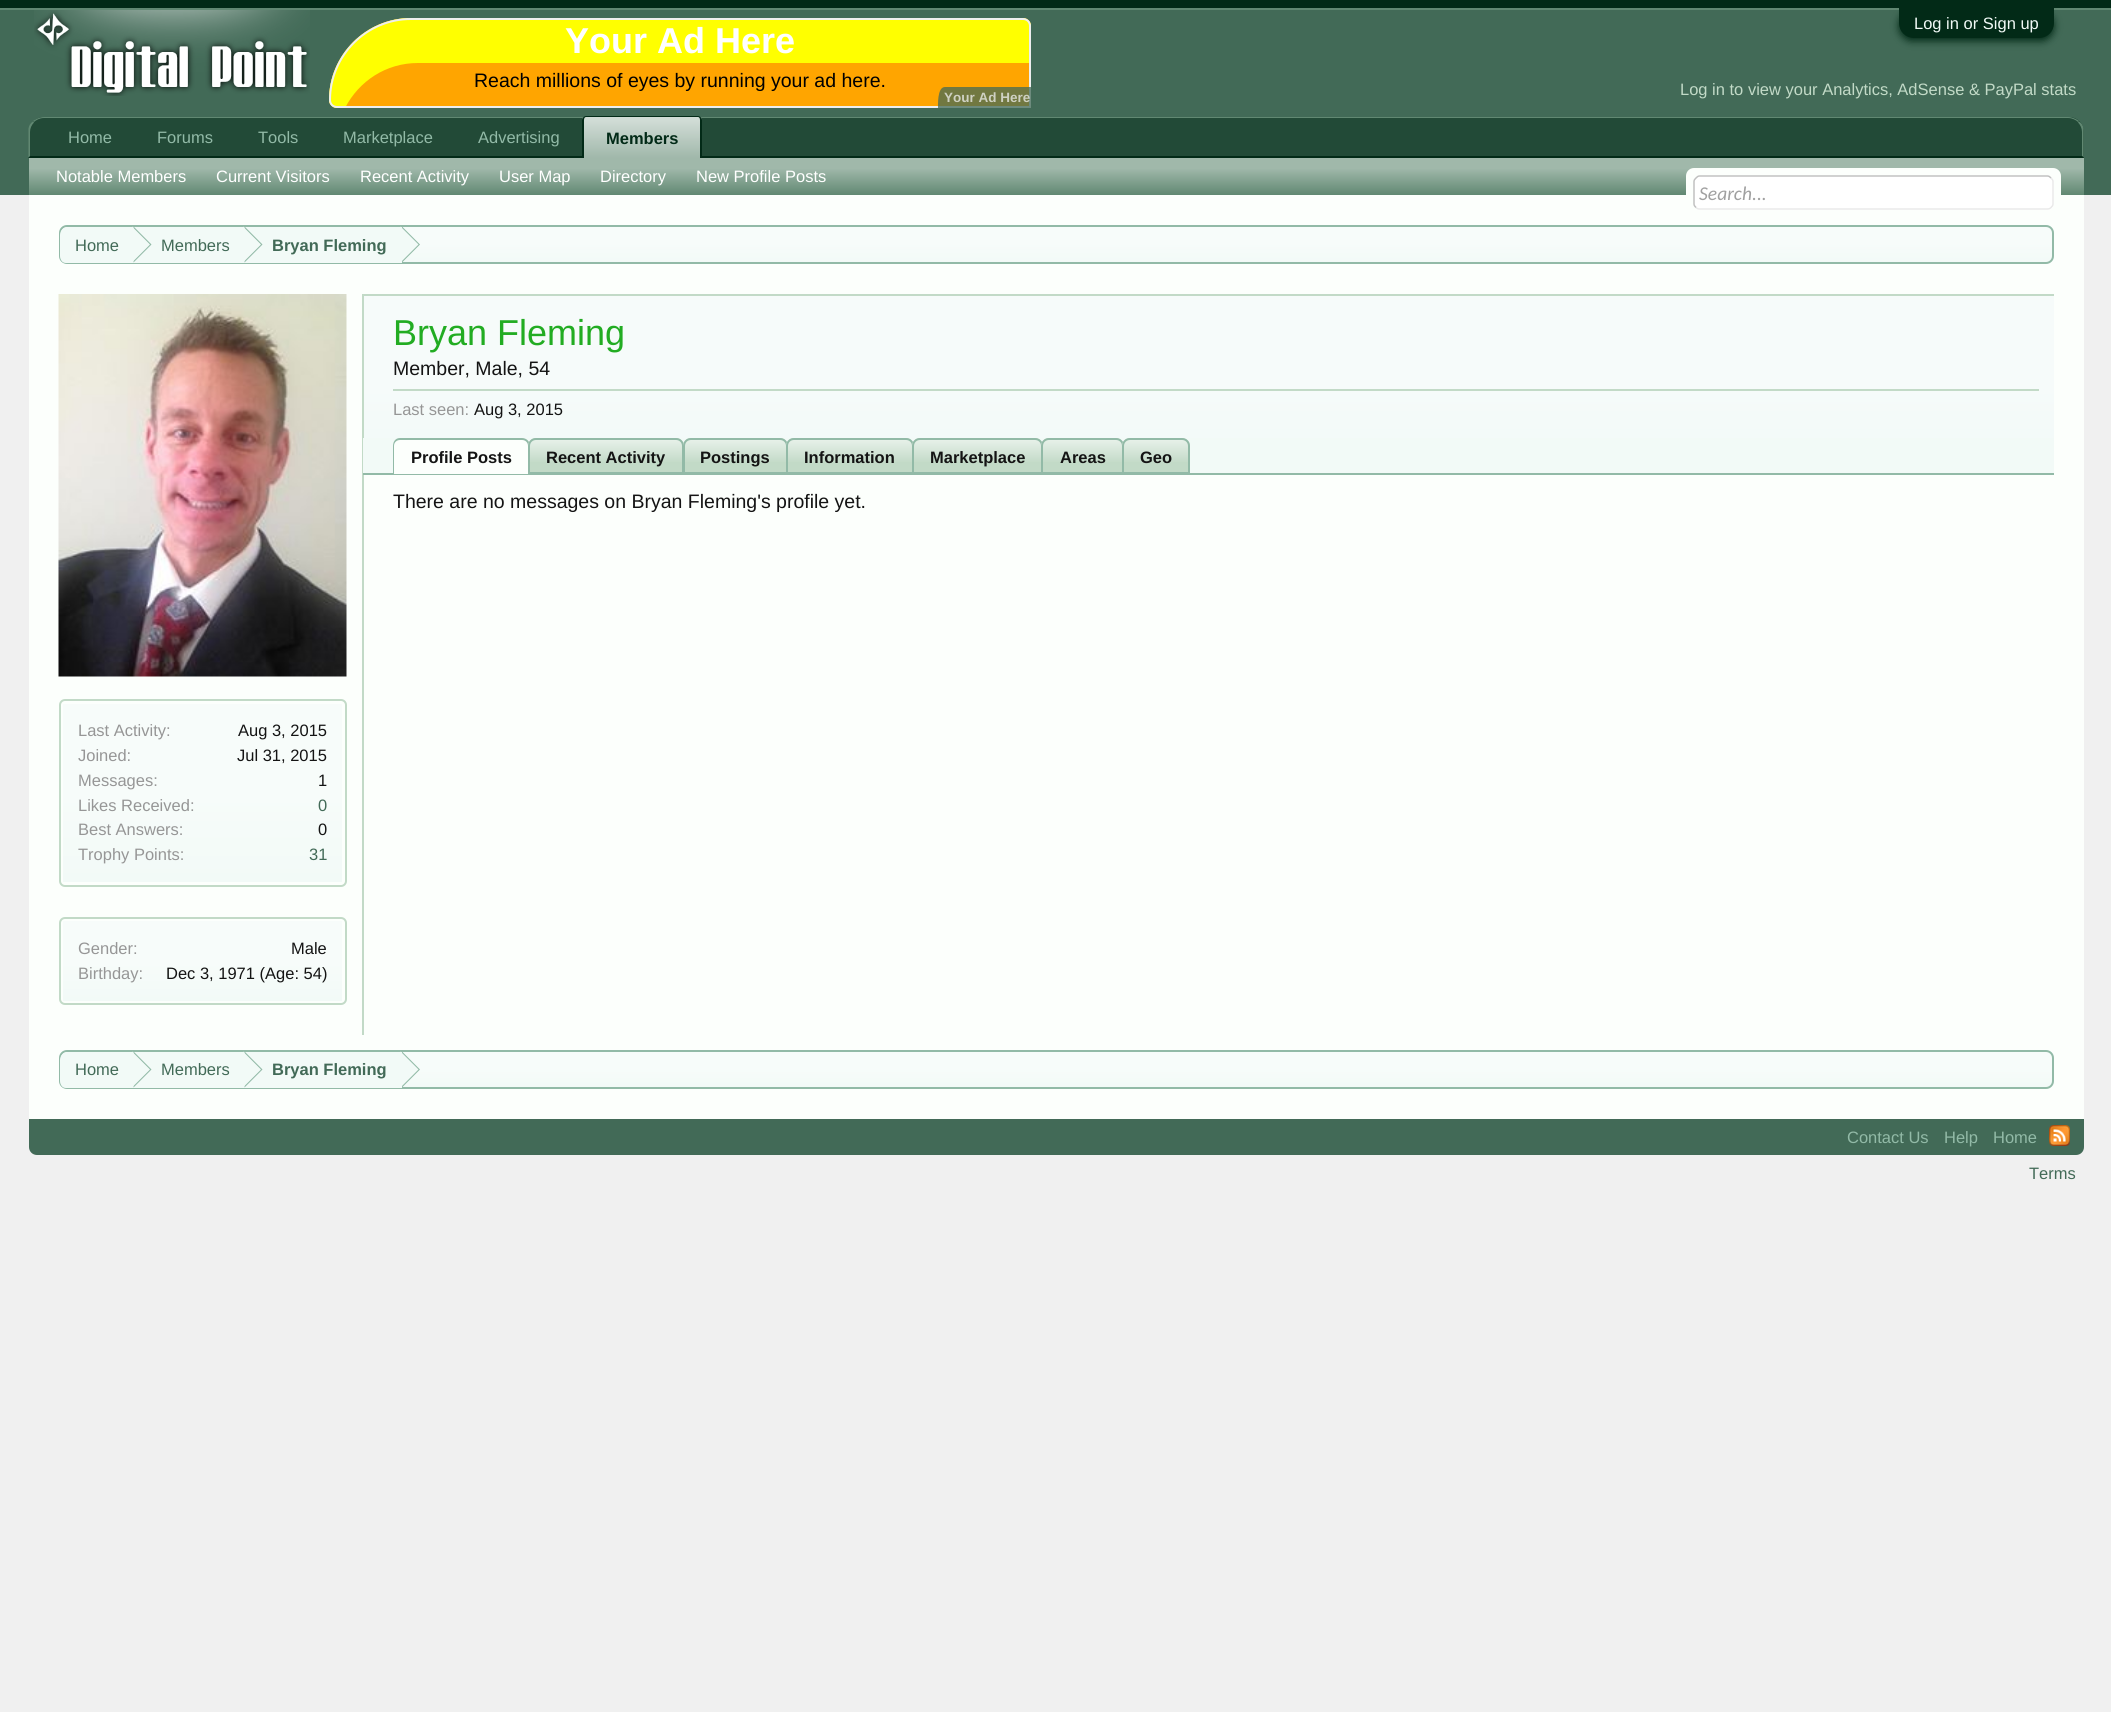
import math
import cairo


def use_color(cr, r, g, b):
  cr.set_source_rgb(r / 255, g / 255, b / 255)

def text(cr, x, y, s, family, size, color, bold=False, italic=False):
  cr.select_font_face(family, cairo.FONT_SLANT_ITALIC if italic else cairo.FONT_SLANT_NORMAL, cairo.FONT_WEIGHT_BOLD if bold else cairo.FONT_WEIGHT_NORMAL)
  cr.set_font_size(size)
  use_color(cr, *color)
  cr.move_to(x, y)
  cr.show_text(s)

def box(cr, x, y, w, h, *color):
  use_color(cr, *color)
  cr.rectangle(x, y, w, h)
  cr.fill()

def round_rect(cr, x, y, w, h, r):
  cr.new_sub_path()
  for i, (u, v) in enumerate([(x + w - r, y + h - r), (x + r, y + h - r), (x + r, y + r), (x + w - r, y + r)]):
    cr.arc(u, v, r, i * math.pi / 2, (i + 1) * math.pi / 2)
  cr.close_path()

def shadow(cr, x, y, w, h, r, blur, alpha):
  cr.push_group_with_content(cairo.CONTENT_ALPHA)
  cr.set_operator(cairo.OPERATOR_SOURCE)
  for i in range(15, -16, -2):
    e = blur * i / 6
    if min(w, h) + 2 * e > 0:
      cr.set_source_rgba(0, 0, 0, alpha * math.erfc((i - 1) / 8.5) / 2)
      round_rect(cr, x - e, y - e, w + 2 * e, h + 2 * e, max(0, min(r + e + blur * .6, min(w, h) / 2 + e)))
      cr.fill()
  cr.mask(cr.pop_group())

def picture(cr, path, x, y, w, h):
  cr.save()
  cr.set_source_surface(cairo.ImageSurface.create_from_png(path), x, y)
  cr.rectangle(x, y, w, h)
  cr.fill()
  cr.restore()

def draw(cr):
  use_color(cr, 240, 240, 240)
  cr.paint()
  box(cr, 0, 0, 2111, 8, 2, 42, 23)
  box(cr, 0, 8, 2111, 2, 97, 136, 114)
  box(cr, 0, 10, 2111, 185, 66, 106, 87)
  use_color(cr, 2, 42, 23)
  shadow(cr, 1899, 11, 155, 30, 15, 4, 1)
  use_color(cr, 2, 42, 23)
  cr.new_path()
  cr.move_to(1899, 8)
  cr.line_to(2054, 8)
  cr.line_to(2054, 23)
  cr.curve_to(2054, 31.5, 2047.5, 38, 2039, 38)
  cr.line_to(1914, 38)
  cr.curve_to(1905.5, 38, 1899, 31.5, 1899, 23)
  cr.close_path()
  cr.fill()
  picture(cr, "img_01.png", 34, 10, 276, 86)
  use_color(cr, 255, 165, 0)
  cr.new_path()
  cr.move_to(411, 18)
  cr.line_to(1023, 18)
  cr.curve_to(1027.5, 18, 1031, 21.5, 1031, 26)
  cr.line_to(1031, 108)
  cr.line_to(337, 108)
  cr.curve_to(332.5, 108, 329, 104.5, 329, 100)
  cr.curve_to(329, 55, 366, 18, 411, 18)
  cr.close_path()
  cr.fill()
  use_color(cr, 255, 255, 0)
  cr.new_path()
  cr.move_to(418, 63)
  cr.line_to(1031, 63)
  cr.line_to(1031, 26)
  cr.curve_to(1031, 22, 1027, 18, 1023, 18)
  cr.line_to(411, 18)
  cr.curve_to(366, 18, 329, 55, 329, 100)
  cr.curve_to(329, 104, 333, 108, 337, 108)
  cr.line_to(345, 108)
  cr.curve_to(359, 81, 386, 63, 418, 63)
  cr.close_path()
  cr.fill()
  cr.new_path()
  cr.move_to(411, 19)
  cr.line_to(1023, 19)
  cr.curve_to(1027, 19, 1030, 22, 1030, 26)
  cr.line_to(1030, 107)
  cr.line_to(337, 107)
  cr.curve_to(333, 107, 330, 104, 330, 100)
  cr.curve_to(330, 55.5, 366.5, 19, 411, 19)
  cr.close_path()
  use_color(cr, 238, 238, 238)
  cr.stroke()
  cr.save()
  cr.rectangle(329, 18, 702, 90)
  cr.clip()
  cr.set_source_rgba(0.259, 0.416, 0.341, 0.75)
  cr.new_path()
  cr.move_to(945, 87)
  cr.line_to(1032, 87)
  cr.line_to(1032, 111)
  cr.line_to(938, 111)
  cr.curve_to(938, 105, 937, 87, 945, 87)
  cr.close_path()
  cr.fill()
  cr.restore()
  use_color(cr, 34, 74, 55)
  cr.new_path()
  cr.move_to(44, 117)
  cr.line_to(2069, 117)
  cr.curve_to(2077.5, 117, 2084, 123.5, 2084, 132)
  cr.line_to(2084, 158)
  cr.line_to(29, 158)
  cr.line_to(29, 132)
  cr.curve_to(29, 123.5, 35.5, 117, 44, 117)
  cr.close_path()
  cr.fill()
  use_color(cr, 97, 136, 114)
  cr.new_path()
  cr.move_to(44, 117)
  cr.curve_to(40, 117, 36, 119, 33, 121)
  cr.line_to(34, 122)
  cr.curve_to(36, 120, 40, 118, 44, 118)
  cr.line_to(2068, 118)
  cr.curve_to(2072, 118, 2076, 120, 2078, 122)
  cr.line_to(2079, 121)
  cr.curve_to(2076, 119, 2072, 117, 2068, 117)
  cr.close_path()
  cr.fill()
  cr.new_path()
  cr.move_to(2079, 121.5)
  cr.curve_to(2081.5, 123, 2083, 125.5, 2083.5, 128.5)
  cr.line_to(2083.5, 157.5)
  cr.line_to(2082, 156)
  cr.line_to(2082, 132)
  cr.curve_to(2082, 128.5, 2080.5, 125, 2078, 122.5)
  cr.close_path()
  cr.fill()
  use_color(cr, 2, 42, 23)
  cr.new_path()
  cr.move_to(2084, 158)
  cr.line_to(2082, 156)
  cr.line_to(30, 156)
  cr.line_to(28, 158)
  cr.close_path()
  cr.fill()
  use_color(cr, 97, 136, 114)
  cr.new_path()
  cr.move_to(28.5, 157.5)
  cr.line_to(28.5, 128.5)
  cr.curve_to(29, 125.5, 30.5, 123, 33, 121.5)
  cr.line_to(34, 122.5)
  cr.curve_to(31.5, 125, 30, 128.5, 30, 132)
  cr.line_to(30, 156)
  cr.close_path()
  cr.fill()
  cr.new_path()
  cr.move_to(587, 116)
  cr.line_to(697, 116)
  cr.curve_to(700, 116, 702, 118, 702, 121)
  cr.line_to(702, 158)
  cr.line_to(582, 158)
  cr.line_to(582, 121)
  cr.curve_to(582, 118, 584, 116, 587, 116)
  cr.close_path()
  cr.fill()
  cr.save()
  cr.new_path()
  cr.move_to(587, 116)
  cr.line_to(697, 116)
  cr.curve_to(700, 116, 702, 118, 702, 121)
  cr.line_to(702, 158)
  cr.line_to(582, 158)
  cr.line_to(582, 121)
  cr.curve_to(582, 118, 584, 116, 587, 116)
  cr.close_path()
  cr.clip()
  gradient = cairo.LinearGradient(642, 117, 642, 158)
  gradient.add_color_stop_rgba(0, 1, 1, 1, 0.7)
  gradient.add_color_stop_rgba(0.1, 1, 1, 1, 0.7)
  gradient.add_color_stop_rgba(1, 1, 1, 1, 0.4)
  cr.set_source(gradient)
  cr.rectangle(582, 117, 120, 41)
  cr.fill()
  cr.restore()
  use_color(cr, 2, 42, 23)
  cr.set_fill_rule(cairo.FILL_RULE_EVEN_ODD)
  cr.new_path()
  cr.move_to(586, 116)
  cr.line_to(698, 116)
  cr.curve_to(700, 116, 702, 118, 702, 120)
  cr.line_to(702, 158)
  cr.line_to(582, 158)
  cr.line_to(582, 120)
  cr.curve_to(582, 118, 584, 116, 586, 116)
  cr.close_path()
  cr.move_to(586, 117)
  cr.line_to(698, 117)
  cr.curve_to(699, 117, 700, 118, 700, 120)
  cr.line_to(700, 158)
  cr.line_to(584, 158)
  cr.line_to(584, 120)
  cr.curve_to(584, 118, 585, 117, 586, 117)
  cr.close_path()
  cr.fill()
  gradient = cairo.LinearGradient(1056, 157, 1056, 195)
  gradient.add_color_stop_rgba(0, 0.627, 0.722, 0.667, 1)
  gradient.add_color_stop_rgba(0.3, 0.627, 0.722, 0.667, 1)
  gradient.add_color_stop_rgba(1, 0.38, 0.533, 0.447, 1)
  cr.set_source(gradient)
  cr.rectangle(29, 158, 2055, 37)
  cr.fill()
  box(cr, 29, 195, 2055, 924, 252, 255, 252)
  round_rect(cr, 1686, 168, 375, 42, 8)
  cr.fill()
  use_color(cr, 255, 255, 255)
  round_rect(cr, 1694, 176, 360, 34, 6)
  cr.fill()
  cr.new_path()
  cr.move_to(2051, 178)
  cr.curve_to(2052, 179, 2053, 180, 2053, 181.5)
  cr.line_to(2053, 204)
  cr.curve_to(2053, 205.5, 2052, 206.5, 2051, 207.5)
  cr.curve_to(2050, 208.5, 2049, 209, 2047.5, 209)
  cr.line_to(1699.5, 209)
  cr.curve_to(1698, 209, 1697, 208.5, 1696, 207.5)
  use_color(cr, 233, 233, 233)
  cr.set_line_width(1.5)
  cr.stroke()
  cr.new_path()
  cr.move_to(1696, 207.5)
  cr.curve_to(1695, 206.5, 1694, 205.5, 1694, 204)
  cr.line_to(1694, 181.5)
  cr.curve_to(1694, 180, 1695, 179, 1696, 178)
  cr.curve_to(1697, 177, 1698, 176, 1699.5, 176)
  cr.line_to(2047.5, 176)
  cr.curve_to(2049, 176, 2050, 177, 2051, 178)
  use_color(cr, 192, 192, 192)
  cr.stroke()
  use_color(cr, 242, 250, 247)
  round_rect(cr, 59, 225, 1995, 39, 8)
  cr.fill()
  cr.save()
  cr.set_fill_rule(cairo.FILL_RULE_WINDING)
  round_rect(cr, 59, 225, 1995, 39, 8)
  cr.clip()
  gradient = cairo.LinearGradient(1056, 226, 1056, 263)
  gradient.add_color_stop_rgba(0, 1, 1, 1, 0.35)
  gradient.add_color_stop_rgba(0.5, 1, 1, 1, 0.35)
  gradient.add_color_stop_rgba(1, 1, 1, 1, 0)
  cr.set_source(gradient)
  cr.rectangle(59, 227, 1995, 35)
  cr.fill()
  cr.restore()
  round_rect(cr, 60, 226, 1993, 37, 7)
  use_color(cr, 146, 186, 167)
  cr.set_line_width(2)
  cr.stroke()
  cr.save()
  cr.set_fill_rule(cairo.FILL_RULE_WINDING)
  round_rect(cr, 60, 227, 1992, 36, 6)
  cr.clip()
  use_color(cr, 242, 250, 247)
  cr.new_path()
  cr.move_to(68, 227)
  cr.line_to(134, 227)
  cr.line_to(134, 264)
  cr.line_to(68, 264)
  cr.curve_to(63.5, 264, 60, 260.5, 60, 256)
  cr.line_to(60, 235)
  cr.curve_to(60, 230.5, 63.5, 227, 68, 227)
  cr.close_path()
  cr.fill()
  cr.restore()
  box(cr, 134, 227, 268, 36, 242, 250, 247)
  use_color(cr, 146, 186, 167)
  cr.set_fill_rule(cairo.FILL_RULE_WINDING)
  cr.new_path()
  cr.move_to(133.5, 262.5)
  cr.line_to(133.5, 226.5)
  cr.line_to(151.5, 244.5)
  cr.close_path()
  cr.fill()
  use_color(cr, 242, 250, 247)
  cr.new_path()
  cr.move_to(132, 262.5)
  cr.line_to(132, 226.5)
  cr.line_to(150, 244.5)
  cr.close_path()
  cr.fill()
  use_color(cr, 146, 186, 167)
  cr.new_path()
  cr.move_to(244.5, 262.5)
  cr.line_to(244.5, 226.5)
  cr.line_to(262.5, 244.5)
  cr.close_path()
  cr.fill()
  use_color(cr, 242, 250, 247)
  cr.new_path()
  cr.move_to(243, 262.5)
  cr.line_to(243, 226.5)
  cr.line_to(261, 244.5)
  cr.close_path()
  cr.fill()
  use_color(cr, 146, 186, 167)
  cr.new_path()
  cr.move_to(402, 262.5)
  cr.line_to(402, 226.5)
  cr.line_to(420, 244.5)
  cr.close_path()
  cr.fill()
  use_color(cr, 242, 250, 247)
  cr.new_path()
  cr.move_to(400.5, 262.5)
  cr.line_to(400.5, 226.5)
  cr.line_to(418.5, 244.5)
  cr.close_path()
  cr.fill()
  box(cr, 363, 294, 1691, 2, 194, 218, 199)
  gradient = cairo.LinearGradient(1208, 295, 1208, 473)
  gradient.add_color_stop_rgba(0, 0.965, 0.984, 0.98, 1)
  gradient.add_color_stop_rgba(0.5, 0.965, 0.984, 0.98, 1)
  gradient.add_color_stop_rgba(1, 0.945, 0.976, 0.973, 1)
  cr.set_source(gradient)
  cr.rectangle(364, 296, 1690, 142)
  cr.fill()
  box(cr, 393, 389, 1646, 2, 194, 218, 199)
  box(cr, 362, 294, 2, 741, 194, 218, 199)
  box(cr, 363, 438, 1691, 35, 242, 250, 247)
  box(cr, 363, 473, 1691, 2, 146, 186, 167)
  use_color(cr, 252, 255, 252)
  cr.new_path()
  cr.move_to(401, 438)
  cr.line_to(522, 438)
  cr.curve_to(526.5, 438, 530, 441.5, 530, 446)
  cr.line_to(530, 474)
  cr.line_to(393, 474)
  cr.line_to(393, 446)
  cr.curve_to(393, 441.5, 396.5, 438, 401, 438)
  cr.close_path()
  cr.fill()
  use_color(cr, 146, 186, 167)
  cr.set_fill_rule(cairo.FILL_RULE_EVEN_ODD)
  cr.new_path()
  cr.move_to(400, 438)
  cr.line_to(522, 438)
  cr.curve_to(526, 438, 530, 441, 530, 446)
  cr.line_to(530, 474)
  cr.line_to(393, 474)
  cr.line_to(393, 446)
  cr.curve_to(393, 441, 396, 438, 400, 438)
  cr.close_path()
  cr.move_to(400, 440)
  cr.line_to(522, 440)
  cr.curve_to(525, 440, 528, 442, 528, 446)
  cr.line_to(528, 474)
  cr.line_to(394, 474)
  cr.line_to(394, 446)
  cr.curve_to(394, 442, 397, 440, 400, 440)
  cr.close_path()
  cr.fill()
  use_color(cr, 194, 218, 199)
  cr.new_path()
  cr.move_to(536, 438)
  cr.line_to(676, 438)
  cr.curve_to(680.5, 438, 684, 441.5, 684, 446)
  cr.line_to(684, 474)
  cr.line_to(528, 474)
  cr.line_to(528, 446)
  cr.curve_to(528, 441.5, 531.5, 438, 536, 438)
  cr.close_path()
  cr.fill()
  cr.save()
  cr.set_fill_rule(cairo.FILL_RULE_WINDING)
  cr.new_path()
  cr.move_to(536, 438)
  cr.line_to(676, 438)
  cr.curve_to(680.5, 438, 684, 441.5, 684, 446)
  cr.line_to(684, 474)
  cr.line_to(528, 474)
  cr.line_to(528, 446)
  cr.curve_to(528, 441.5, 531.5, 438, 536, 438)
  cr.close_path()
  cr.clip()
  gradient = cairo.LinearGradient(606, 440, 606, 473)
  gradient.add_color_stop_rgba(0, 1, 1, 1, 0.6)
  gradient.add_color_stop_rgba(0.7, 1, 1, 1, 0)
  cr.set_source(gradient)
  cr.rectangle(528, 440, 156, 22)
  cr.fill()
  cr.restore()
  cr.new_path()
  cr.move_to(536, 439)
  cr.line_to(676, 439)
  cr.curve_to(680, 439, 683, 442, 683, 446)
  cr.line_to(683, 473)
  cr.line_to(529, 473)
  cr.line_to(529, 446)
  cr.curve_to(529, 442, 532, 439, 536, 439)
  cr.close_path()
  use_color(cr, 146, 186, 167)
  cr.stroke()
  use_color(cr, 194, 218, 199)
  cr.new_path()
  cr.move_to(691, 438)
  cr.line_to(780, 438)
  cr.curve_to(784.5, 438, 788, 441.5, 788, 446)
  cr.line_to(788, 474)
  cr.line_to(683, 474)
  cr.line_to(683, 446)
  cr.curve_to(683, 441.5, 686.5, 438, 691, 438)
  cr.close_path()
  cr.fill()
  cr.save()
  cr.set_fill_rule(cairo.FILL_RULE_WINDING)
  cr.new_path()
  cr.move_to(691, 438)
  cr.line_to(780, 438)
  cr.curve_to(784.5, 438, 788, 441.5, 788, 446)
  cr.line_to(788, 474)
  cr.line_to(683, 474)
  cr.line_to(683, 446)
  cr.curve_to(683, 441.5, 686.5, 438, 691, 438)
  cr.close_path()
  cr.clip()
  gradient = cairo.LinearGradient(735, 440, 735, 473)
  gradient.add_color_stop_rgba(0, 1, 1, 1, 0.6)
  gradient.add_color_stop_rgba(0.7, 1, 1, 1, 0)
  cr.set_source(gradient)
  cr.rectangle(683, 440, 105, 22)
  cr.fill()
  cr.restore()
  cr.new_path()
  cr.move_to(691, 439)
  cr.line_to(780, 439)
  cr.curve_to(784, 439, 787, 442, 787, 446)
  cr.line_to(787, 473)
  cr.line_to(684, 473)
  cr.line_to(684, 446)
  cr.curve_to(684, 442, 687, 439, 691, 439)
  cr.close_path()
  use_color(cr, 146, 186, 167)
  cr.stroke()
  use_color(cr, 194, 218, 199)
  cr.new_path()
  cr.move_to(794, 438)
  cr.line_to(906, 438)
  cr.curve_to(910.5, 438, 914, 441.5, 914, 446)
  cr.line_to(914, 474)
  cr.line_to(786, 474)
  cr.line_to(786, 446)
  cr.curve_to(786, 441.5, 789.5, 438, 794, 438)
  cr.close_path()
  cr.fill()
  cr.save()
  cr.set_fill_rule(cairo.FILL_RULE_WINDING)
  cr.new_path()
  cr.move_to(794, 438)
  cr.line_to(906, 438)
  cr.curve_to(910.5, 438, 914, 441.5, 914, 446)
  cr.line_to(914, 474)
  cr.line_to(786, 474)
  cr.line_to(786, 446)
  cr.curve_to(786, 441.5, 789.5, 438, 794, 438)
  cr.close_path()
  cr.clip()
  gradient = cairo.LinearGradient(850, 440, 850, 473)
  gradient.add_color_stop_rgba(0, 1, 1, 1, 0.6)
  gradient.add_color_stop_rgba(0.7, 1, 1, 1, 0)
  cr.set_source(gradient)
  cr.rectangle(786, 440, 128, 22)
  cr.fill()
  cr.restore()
  cr.new_path()
  cr.move_to(794, 439)
  cr.line_to(906, 439)
  cr.curve_to(910, 439, 913, 442, 913, 446)
  cr.line_to(913, 473)
  cr.line_to(787, 473)
  cr.line_to(787, 446)
  cr.curve_to(787, 442, 790, 439, 794, 439)
  cr.close_path()
  use_color(cr, 146, 186, 167)
  cr.stroke()
  use_color(cr, 194, 218, 199)
  cr.new_path()
  cr.move_to(920, 438)
  cr.line_to(1035, 438)
  cr.curve_to(1039.5, 438, 1043, 441.5, 1043, 446)
  cr.line_to(1043, 474)
  cr.line_to(912, 474)
  cr.line_to(912, 446)
  cr.curve_to(912, 441.5, 915.5, 438, 920, 438)
  cr.close_path()
  cr.fill()
  cr.save()
  cr.set_fill_rule(cairo.FILL_RULE_WINDING)
  cr.new_path()
  cr.move_to(920, 438)
  cr.line_to(1035, 438)
  cr.curve_to(1039.5, 438, 1043, 441.5, 1043, 446)
  cr.line_to(1043, 474)
  cr.line_to(912, 474)
  cr.line_to(912, 446)
  cr.curve_to(912, 441.5, 915.5, 438, 920, 438)
  cr.close_path()
  cr.clip()
  gradient = cairo.LinearGradient(977, 440, 977, 473)
  gradient.add_color_stop_rgba(0, 1, 1, 1, 0.6)
  gradient.add_color_stop_rgba(0.7, 1, 1, 1, 0)
  cr.set_source(gradient)
  cr.rectangle(912, 440, 131, 22)
  cr.fill()
  cr.restore()
  cr.new_path()
  cr.move_to(920, 439)
  cr.line_to(1035, 439)
  cr.curve_to(1039, 439, 1042, 442, 1042, 446)
  cr.line_to(1042, 473)
  cr.line_to(913, 473)
  cr.line_to(913, 446)
  cr.curve_to(913, 442, 916, 439, 920, 439)
  cr.close_path()
  use_color(cr, 146, 186, 167)
  cr.stroke()
  use_color(cr, 194, 218, 199)
  cr.new_path()
  cr.move_to(1049, 438)
  cr.line_to(1116, 438)
  cr.curve_to(1120.5, 438, 1124, 441.5, 1124, 446)
  cr.line_to(1124, 474)
  cr.line_to(1041, 474)
  cr.line_to(1041, 446)
  cr.curve_to(1041, 441.5, 1044.5, 438, 1049, 438)
  cr.close_path()
  cr.fill()
  cr.save()
  cr.set_fill_rule(cairo.FILL_RULE_WINDING)
  cr.new_path()
  cr.move_to(1049, 438)
  cr.line_to(1116, 438)
  cr.curve_to(1120.5, 438, 1124, 441.5, 1124, 446)
  cr.line_to(1124, 474)
  cr.line_to(1041, 474)
  cr.line_to(1041, 446)
  cr.curve_to(1041, 441.5, 1044.5, 438, 1049, 438)
  cr.close_path()
  cr.clip()
  gradient = cairo.LinearGradient(1082, 440, 1082, 473)
  gradient.add_color_stop_rgba(0, 1, 1, 1, 0.6)
  gradient.add_color_stop_rgba(0.7, 1, 1, 1, 0)
  cr.set_source(gradient)
  cr.rectangle(1041, 440, 83, 22)
  cr.fill()
  cr.restore()
  cr.new_path()
  cr.move_to(1049, 439)
  cr.line_to(1116, 439)
  cr.curve_to(1120, 439, 1123, 442, 1123, 446)
  cr.line_to(1123, 473)
  cr.line_to(1042, 473)
  cr.line_to(1042, 446)
  cr.curve_to(1042, 442, 1045, 439, 1049, 439)
  cr.close_path()
  use_color(cr, 146, 186, 167)
  cr.stroke()
  use_color(cr, 194, 218, 199)
  cr.new_path()
  cr.move_to(1130, 438)
  cr.line_to(1182, 438)
  cr.curve_to(1186.5, 438, 1190, 441.5, 1190, 446)
  cr.line_to(1190, 474)
  cr.line_to(1122, 474)
  cr.line_to(1122, 446)
  cr.curve_to(1122, 441.5, 1125.5, 438, 1130, 438)
  cr.close_path()
  cr.fill()
  cr.save()
  cr.set_fill_rule(cairo.FILL_RULE_WINDING)
  cr.new_path()
  cr.move_to(1130, 438)
  cr.line_to(1182, 438)
  cr.curve_to(1186.5, 438, 1190, 441.5, 1190, 446)
  cr.line_to(1190, 474)
  cr.line_to(1122, 474)
  cr.line_to(1122, 446)
  cr.curve_to(1122, 441.5, 1125.5, 438, 1130, 438)
  cr.close_path()
  cr.clip()
  gradient = cairo.LinearGradient(1156, 440, 1156, 473)
  gradient.add_color_stop_rgba(0, 1, 1, 1, 0.6)
  gradient.add_color_stop_rgba(0.7, 1, 1, 1, 0)
  cr.set_source(gradient)
  cr.rectangle(1122, 440, 68, 22)
  cr.fill()
  cr.restore()
  cr.new_path()
  cr.move_to(1130, 439)
  cr.line_to(1182, 439)
  cr.curve_to(1186, 439, 1189, 442, 1189, 446)
  cr.line_to(1189, 473)
  cr.line_to(1123, 473)
  cr.line_to(1123, 446)
  cr.curve_to(1123, 442, 1126, 439, 1130, 439)
  cr.close_path()
  use_color(cr, 146, 186, 167)
  cr.stroke()
  picture(cr, "img_02.png", 58, 294, 289, 383)
  round_rect(cr, 60, 700, 286, 186, 5)
  use_color(cr, 194, 218, 199)
  cr.stroke()
  gradient = cairo.LinearGradient(203, 704, 203, 882)
  gradient.add_color_stop_rgba(0, 0.969, 0.988, 0.98, 1)
  gradient.add_color_stop_rgba(0.5, 0.969, 0.988, 0.98, 1)
  gradient.add_color_stop_rgba(1, 0.949, 0.98, 0.969, 1)
  cr.set_source(gradient)
  cr.rectangle(63, 704, 279, 178)
  cr.fill()
  round_rect(cr, 60, 918, 286, 86, 5)
  use_color(cr, 194, 218, 199)
  cr.stroke()
  gradient = cairo.LinearGradient(203, 921, 203, 1001)
  gradient.add_color_stop_rgba(0, 0.969, 0.988, 0.98, 1)
  gradient.add_color_stop_rgba(0.5, 0.969, 0.988, 0.98, 1)
  gradient.add_color_stop_rgba(1, 0.949, 0.98, 0.969, 1)
  cr.set_source(gradient)
  cr.rectangle(63, 921, 279, 80)
  cr.fill()
  use_color(cr, 242, 250, 247)
  round_rect(cr, 59, 1050, 1995, 39, 8)
  cr.fill()
  cr.save()
  cr.set_fill_rule(cairo.FILL_RULE_WINDING)
  round_rect(cr, 59, 1050, 1995, 39, 8)
  cr.clip()
  gradient = cairo.LinearGradient(1056, 1051, 1056, 1088)
  gradient.add_color_stop_rgba(0, 1, 1, 1, 0.35)
  gradient.add_color_stop_rgba(0.5, 1, 1, 1, 0.35)
  gradient.add_color_stop_rgba(1, 1, 1, 1, 0)
  cr.set_source(gradient)
  cr.rectangle(59, 1052, 1995, 35)
  cr.fill()
  cr.restore()
  round_rect(cr, 60, 1051, 1993, 37, 7)
  use_color(cr, 146, 186, 167)
  cr.stroke()
  cr.save()
  cr.set_fill_rule(cairo.FILL_RULE_WINDING)
  round_rect(cr, 60, 1052, 1992, 36, 6)
  cr.clip()
  use_color(cr, 242, 250, 247)
  cr.new_path()
  cr.move_to(68, 1052)
  cr.line_to(134, 1052)
  cr.line_to(134, 1089)
  cr.line_to(68, 1089)
  cr.curve_to(63.5, 1089, 60, 1085.5, 60, 1081)
  cr.line_to(60, 1060)
  cr.curve_to(60, 1055.5, 63.5, 1052, 68, 1052)
  cr.close_path()
  cr.fill()
  cr.restore()
  box(cr, 134, 1052, 268, 36, 242, 250, 247)
  use_color(cr, 146, 186, 167)
  cr.set_fill_rule(cairo.FILL_RULE_WINDING)
  cr.new_path()
  cr.move_to(133.5, 1087.5)
  cr.line_to(133.5, 1051.5)
  cr.line_to(151.5, 1069.5)
  cr.close_path()
  cr.fill()
  use_color(cr, 242, 250, 247)
  cr.new_path()
  cr.move_to(132, 1087.5)
  cr.line_to(132, 1051.5)
  cr.line_to(150, 1069.5)
  cr.close_path()
  cr.fill()
  use_color(cr, 146, 186, 167)
  cr.new_path()
  cr.move_to(244.5, 1087.5)
  cr.line_to(244.5, 1051.5)
  cr.line_to(262.5, 1069.5)
  cr.close_path()
  cr.fill()
  use_color(cr, 242, 250, 247)
  cr.new_path()
  cr.move_to(243, 1087.5)
  cr.line_to(243, 1051.5)
  cr.line_to(261, 1069.5)
  cr.close_path()
  cr.fill()
  use_color(cr, 146, 186, 167)
  cr.new_path()
  cr.move_to(402, 1087.5)
  cr.line_to(402, 1051.5)
  cr.line_to(420, 1069.5)
  cr.close_path()
  cr.fill()
  use_color(cr, 242, 250, 247)
  cr.new_path()
  cr.move_to(400.5, 1087.5)
  cr.line_to(400.5, 1051.5)
  cr.line_to(418.5, 1069.5)
  cr.close_path()
  cr.fill()
  use_color(cr, 66, 106, 87)
  cr.new_path()
  cr.move_to(29, 1119)
  cr.line_to(2084, 1119)
  cr.line_to(2084, 1147)
  cr.curve_to(2084, 1151.5, 2080.5, 1155, 2076, 1155)
  cr.line_to(37, 1155)
  cr.curve_to(32.5, 1155, 29, 1151.5, 29, 1147)
  cr.close_path()
  cr.fill()
  picture(cr, "img_03.png", 2049, 1125, 21, 21)
  text(cr, 1914, 29, "Log in or Sign up", "Liberation Sans", 16.5, (242, 250, 247))
  text(cr, 565, 53, "Your Ad Here", "Liberation Sans", 36, (255, 255, 255), bold=True)
  text(cr, 474, 87, "Reach millions of eyes by running your ad here.", "Liberation Sans", 19.5, (0, 0, 0))
  text(cr, 944, 102, "Your Ad Here", "Liberation Sans", 13.5, (207, 209, 195), bold=True)
  text(cr, 1680, 95, "Log in to view your Analytics, AdSense & PayPal stats", "Liberation Sans", 16.5, (194, 218, 199))
  text(cr, 68, 143, "Home", "Liberation Sans", 16.5, (146, 186, 167))
  text(cr, 157, 143, "Forums", "Liberation Sans", 16.5, (146, 186, 167))
  text(cr, 258, 143, "Tools", "Liberation Sans", 16.5, (146, 186, 167))
  text(cr, 343, 143, "Marketplace", "Liberation Sans", 16.5, (146, 186, 167))
  text(cr, 478, 143, "Advertising", "Liberation Sans", 16.5, (146, 186, 167))
  text(cr, 606, 144, "Members", "Liberation Sans", 16.5, (2, 42, 23), bold=True)
  text(cr, 56, 182, "Notable Members", "Liberation Sans", 16.5, (255, 255, 255))
  text(cr, 216, 182, "Current Visitors", "Liberation Sans", 16.5, (255, 255, 255))
  text(cr, 360, 182, "Recent Activity", "Liberation Sans", 16.5, (255, 255, 255))
  text(cr, 499, 182, "User Map", "Liberation Sans", 16.5, (255, 255, 255))
  text(cr, 600, 182, "Directory", "Liberation Sans", 16.5, (255, 255, 255))
  text(cr, 696, 182, "New Profile Posts", "Liberation Sans", 16.5, (255, 255, 255))
  text(cr, 1699, 200, "Search...", "Carlito", 19.5, (160, 160, 160), italic=True)
  text(cr, 75, 251, "Home", "Liberation Sans", 16.5, (66, 106, 87))
  text(cr, 161, 251, "Members", "Liberation Sans", 16.5, (66, 106, 87))
  text(cr, 272, 251, "Bryan Fleming", "Liberation Sans", 16.5, (66, 106, 87), bold=True)
  text(cr, 393, 345, "Bryan Fleming", "Liberation Sans", 36, (34, 172, 34))
  text(cr, 393, 375, "Member, Male, 54", "Liberation Sans", 19.5, (20, 20, 20))
  text(cr, 393, 415, "Last seen:", "Liberation Sans", 16.5, (150, 150, 150))
  text(cr, 474, 415, "Aug 3, 2015", "Liberation Sans", 16.5, (20, 20, 20))
  text(cr, 411, 463, "Profile Posts", "Liberation Sans", 16.5, (20, 20, 20), bold=True)
  text(cr, 546, 463, "Recent Activity", "Liberation Sans", 16.5, (20, 20, 20), bold=True)
  text(cr, 700, 463, "Postings", "Liberation Sans", 16.5, (20, 20, 20), bold=True)
  text(cr, 804, 463, "Information", "Liberation Sans", 16.5, (20, 20, 20), bold=True)
  text(cr, 930, 463, "Marketplace", "Liberation Sans", 16.5, (20, 20, 20), bold=True)
  text(cr, 1060, 463, "Areas", "Liberation Sans", 16.5, (20, 20, 20), bold=True)
  text(cr, 1140, 463, "Geo", "Liberation Sans", 16.5, (20, 20, 20), bold=True)
  text(cr, 393, 508, "There are no messages on Bryan Fleming's profile yet.", "Liberation Sans", 19.5, (20, 20, 20))
  text(cr, 78, 736, "Last Activity:", "Liberation Sans", 16.5, (150, 150, 150))
  text(cr, 238, 736, "Aug 3, 2015", "Liberation Sans", 16.5, (20, 20, 20))
  text(cr, 78, 761, "Joined:", "Liberation Sans", 16.5, (150, 150, 150))
  text(cr, 237, 761, "Jul 31, 2015", "Liberation Sans", 16.5, (20, 20, 20))
  text(cr, 78, 786, "Messages:", "Liberation Sans", 16.5, (150, 150, 150))
  text(cr, 318, 786, "1", "Liberation Sans", 16.5, (20, 20, 20))
  text(cr, 78, 811, "Likes Received:", "Liberation Sans", 16.5, (150, 150, 150))
  text(cr, 318, 811, "0", "Liberation Sans", 16.5, (66, 106, 87))
  text(cr, 78, 835, "Best Answers:", "Liberation Sans", 16.5, (150, 150, 150))
  text(cr, 318, 835, "0", "Liberation Sans", 16.5, (20, 20, 20))
  text(cr, 78, 860, "Trophy Points:", "Liberation Sans", 16.5, (150, 150, 150))
  text(cr, 309, 860, "31", "Liberation Sans", 16.5, (66, 106, 87))
  text(cr, 78, 954, "Gender:", "Liberation Sans", 16.5, (150, 150, 150))
  text(cr, 291, 954, "Male", "Liberation Sans", 16.5, (20, 20, 20))
  text(cr, 78, 979, "Birthday:", "Liberation Sans", 16.5, (150, 150, 150))
  text(cr, 166, 979, "Dec 3, 1971 (Age: 54)", "Liberation Sans", 16.5, (20, 20, 20))
  text(cr, 75, 1075, "Home", "Liberation Sans", 16.5, (66, 106, 87))
  text(cr, 161, 1075, "Members", "Liberation Sans", 16.5, (66, 106, 87))
  text(cr, 272, 1075, "Bryan Fleming", "Liberation Sans", 16.5, (66, 106, 87), bold=True)
  text(cr, 1847, 1143, "Contact Us", "Liberation Sans", 16.5, (146, 186, 167))
  text(cr, 1944, 1143, "Help", "Liberation Sans", 16.5, (146, 186, 167))
  text(cr, 1993, 1143, "Home", "Liberation Sans", 16.5, (146, 186, 167))
  text(cr, 2029, 1179, "Terms", "Liberation Sans", 16.5, (66, 106, 87))


surface = cairo.ImageSurface(cairo.FORMAT_RGB24, 2111, 1712)
cr = cairo.Context(surface)
options = cairo.FontOptions()
options.set_hint_metrics(cairo.HINT_METRICS_OFF)
options.set_hint_style(cairo.HINT_STYLE_NONE)
cr.set_font_options(options)
cr.set_miter_limit(4)
draw(cr)
surface.write_to_png("out.png")
